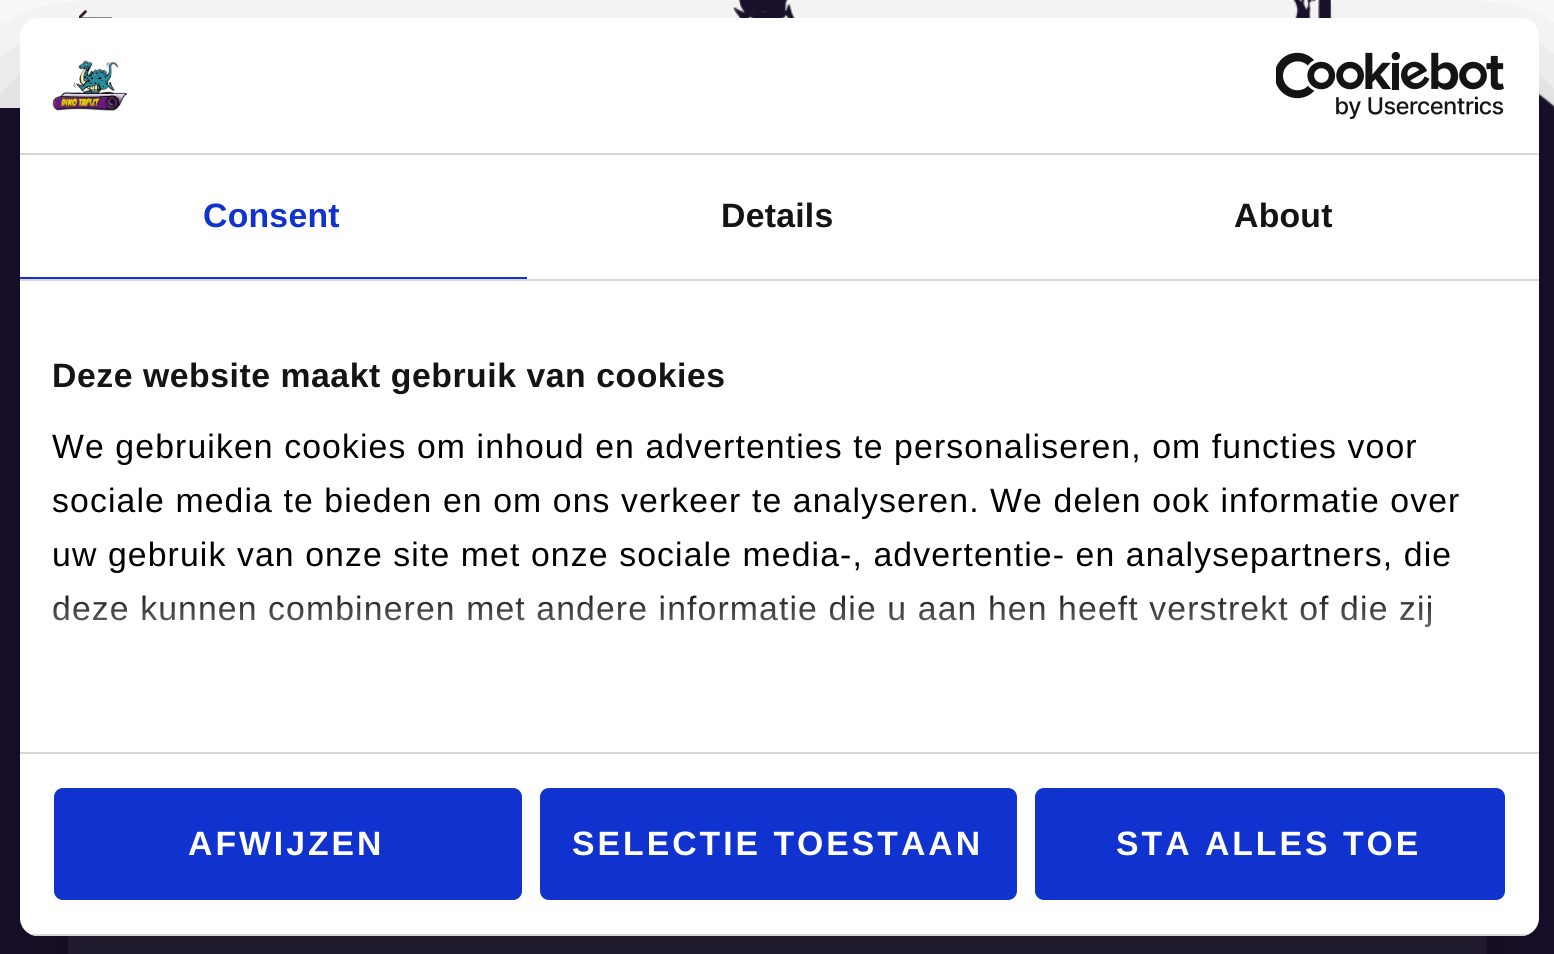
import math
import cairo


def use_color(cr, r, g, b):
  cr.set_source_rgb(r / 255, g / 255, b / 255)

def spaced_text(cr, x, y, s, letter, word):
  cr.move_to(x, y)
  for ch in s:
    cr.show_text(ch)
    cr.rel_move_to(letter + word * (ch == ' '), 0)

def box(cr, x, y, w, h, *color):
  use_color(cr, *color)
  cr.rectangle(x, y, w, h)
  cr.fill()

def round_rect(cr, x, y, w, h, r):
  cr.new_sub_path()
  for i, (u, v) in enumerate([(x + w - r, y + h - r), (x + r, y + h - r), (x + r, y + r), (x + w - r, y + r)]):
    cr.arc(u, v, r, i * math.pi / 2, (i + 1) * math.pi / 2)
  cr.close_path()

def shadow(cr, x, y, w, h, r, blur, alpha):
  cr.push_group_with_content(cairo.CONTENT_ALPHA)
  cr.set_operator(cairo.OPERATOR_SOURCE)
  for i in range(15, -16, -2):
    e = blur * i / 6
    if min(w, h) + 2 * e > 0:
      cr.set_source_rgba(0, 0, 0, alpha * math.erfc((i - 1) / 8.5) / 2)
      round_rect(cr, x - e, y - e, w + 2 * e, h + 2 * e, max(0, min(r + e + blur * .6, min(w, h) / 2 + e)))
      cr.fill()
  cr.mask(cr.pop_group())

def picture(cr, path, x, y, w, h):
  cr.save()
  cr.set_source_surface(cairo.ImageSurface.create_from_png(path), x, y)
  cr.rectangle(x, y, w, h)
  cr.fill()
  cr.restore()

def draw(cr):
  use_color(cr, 255, 255, 255)
  cr.paint()
  box(cr, 0, 108, 1554, 846, 26, 17, 45)
  picture(cr, "img_01.png", 733, 0, 821, 108)
  box(cr, 68, 936, 1419, 18, 41, 35, 59)
  picture(cr, "img_02.png", 79, 10, 34, 8)
  use_color(cr, 0, 0, 0)
  shadow(cr, 20, 90, 1519, 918, 18, 76.5, 0.3)
  use_color(cr, 255, 255, 255)
  round_rect(cr, 20, 18, 1519, 918, 18)
  cr.fill()
  box(cr, 20, 153, 1519, 2, 214, 214, 214)
  picture(cr, "img_03.png", 52, 60, 76, 51)
  picture(cr, "img_04.png", 1276, 52, 228, 67)
  box(cr, 20, 279, 1519, 2, 214, 214, 214)
  box(cr, 20, 277, 507, 2, 16, 50, 207)
  box(cr, 20, 752, 1519, 2, 214, 214, 214)
  cr.save()
  round_rect(cr, 20, 18, 1519, 918, 18)
  cr.clip()
  box(cr, 30, 934, 1499, 2, 214, 214, 214)
  cr.restore()
  use_color(cr, 16, 50, 207)
  round_rect(cr, 54, 788, 468, 112, 9)
  cr.fill()
  round_rect(cr, 540, 788, 477, 112, 9)
  cr.fill()
  round_rect(cr, 1035, 788, 470, 112, 9)
  cr.fill()
  cr.select_font_face("Liberation Sans", cairo.FONT_SLANT_NORMAL, cairo.FONT_WEIGHT_BOLD)
  cr.set_font_size(33.75)
  spaced_text(cr, 203, 227, "Consent", 0.25, 0)
  use_color(cr, 20, 20, 20)
  spaced_text(cr, 721, 227, "Details", 0.25, 0)
  spaced_text(cr, 1234, 227, "About", 0.25, 0)
  spaced_text(cr, 52, 387, "Deze website maakt gebruik van cookies", 0.55, 0)
  cr.select_font_face("Liberation Sans")
  use_color(cr, 0, 0, 0)
  spaced_text(cr, 52, 458, "We gebruiken cookies om inhoud en advertenties te personaliseren, om functies voor", 1.12, 0)
  spaced_text(cr, 52, 512, "sociale media te bieden en om ons verkeer te analyseren. We delen ook informatie over", 1.12, 0)
  spaced_text(cr, 52, 566, "uw gebruik van onze site met onze sociale media-, advertentie- en analysepartners, die", 1.12, 0)
  spaced_text(cr, 52, 620, "deze kunnen combineren met andere informatie die u aan hen heeft verstrekt of die zij", 1.12, 0)
  gradient = cairo.LinearGradient(764, 752, 764, 583)
  gradient.add_color_stop_rgba(0, 1, 1, 1, 1)
  gradient.add_color_stop_rgba(0.5, 1, 1, 1, 0.8)
  gradient.add_color_stop_rgba(1, 1, 1, 1, 0)
  cr.set_source(gradient)
  cr.rectangle(53, 595, 1378, 32)
  cr.fill()
  cr.select_font_face("Liberation Sans", cairo.FONT_SLANT_NORMAL, cairo.FONT_WEIGHT_BOLD)
  use_color(cr, 255, 255, 255)
  spaced_text(cr, 188, 855, "AFWIJZEN", 3, 0)
  spaced_text(cr, 572, 855, "SELECTIE TOESTAAN", 3, 0)
  spaced_text(cr, 1116, 855, "STA ALLES TOE", 3, 0)


surface = cairo.ImageSurface(cairo.FORMAT_RGB24, 1554, 954)
cr = cairo.Context(surface)
options = cairo.FontOptions()
options.set_hint_metrics(cairo.HINT_METRICS_OFF)
options.set_hint_style(cairo.HINT_STYLE_NONE)
cr.set_font_options(options)
cr.set_miter_limit(4)
draw(cr)
surface.write_to_png("out.png")
